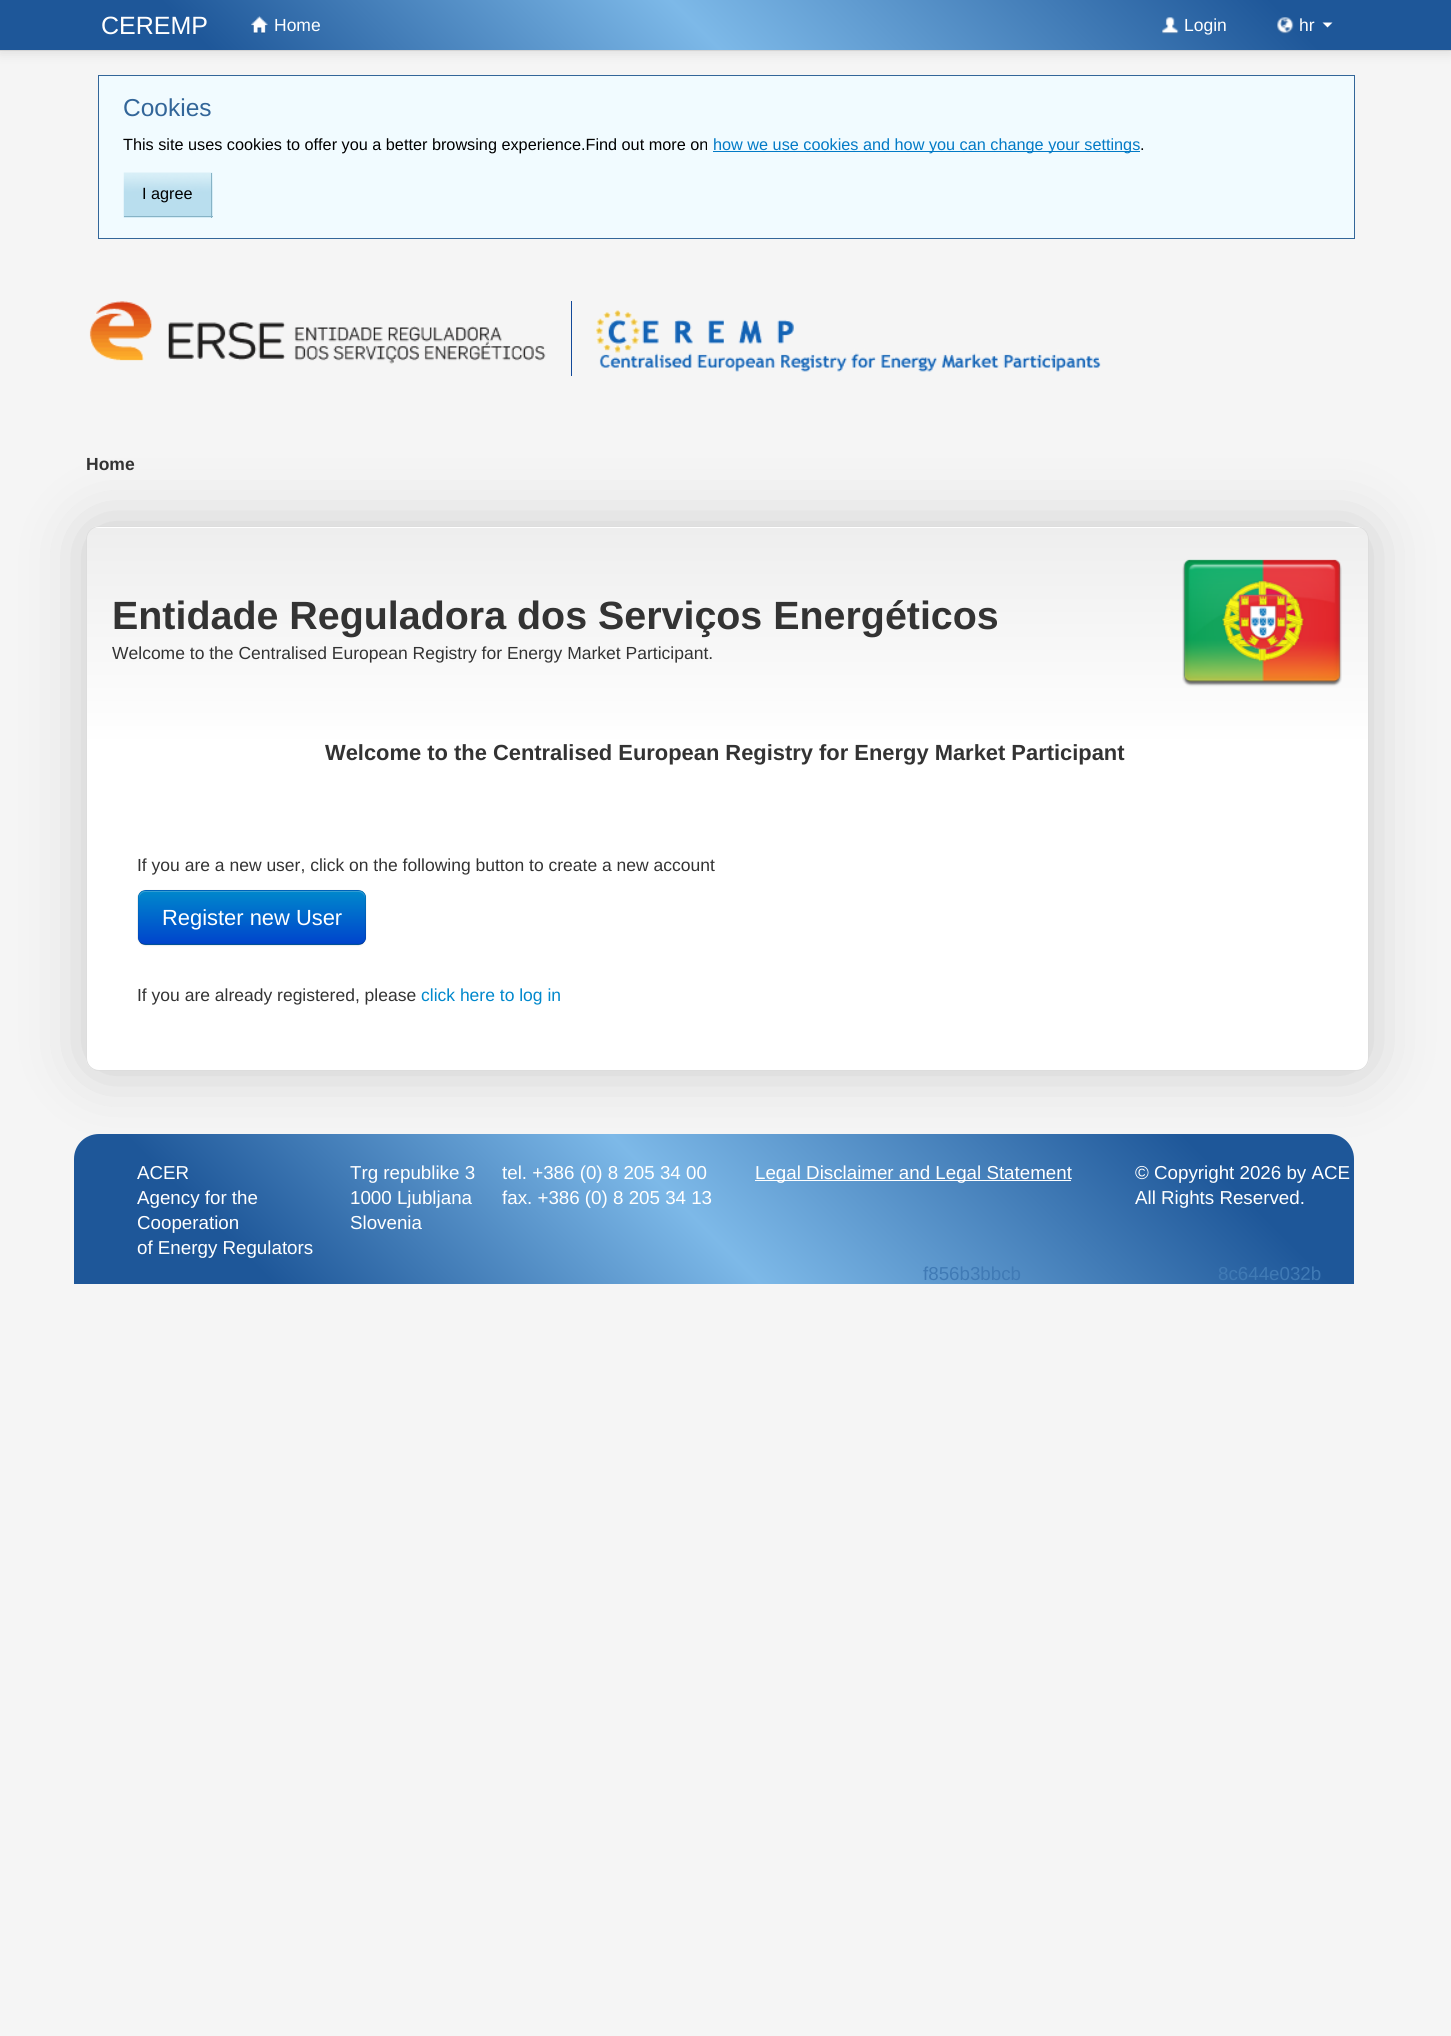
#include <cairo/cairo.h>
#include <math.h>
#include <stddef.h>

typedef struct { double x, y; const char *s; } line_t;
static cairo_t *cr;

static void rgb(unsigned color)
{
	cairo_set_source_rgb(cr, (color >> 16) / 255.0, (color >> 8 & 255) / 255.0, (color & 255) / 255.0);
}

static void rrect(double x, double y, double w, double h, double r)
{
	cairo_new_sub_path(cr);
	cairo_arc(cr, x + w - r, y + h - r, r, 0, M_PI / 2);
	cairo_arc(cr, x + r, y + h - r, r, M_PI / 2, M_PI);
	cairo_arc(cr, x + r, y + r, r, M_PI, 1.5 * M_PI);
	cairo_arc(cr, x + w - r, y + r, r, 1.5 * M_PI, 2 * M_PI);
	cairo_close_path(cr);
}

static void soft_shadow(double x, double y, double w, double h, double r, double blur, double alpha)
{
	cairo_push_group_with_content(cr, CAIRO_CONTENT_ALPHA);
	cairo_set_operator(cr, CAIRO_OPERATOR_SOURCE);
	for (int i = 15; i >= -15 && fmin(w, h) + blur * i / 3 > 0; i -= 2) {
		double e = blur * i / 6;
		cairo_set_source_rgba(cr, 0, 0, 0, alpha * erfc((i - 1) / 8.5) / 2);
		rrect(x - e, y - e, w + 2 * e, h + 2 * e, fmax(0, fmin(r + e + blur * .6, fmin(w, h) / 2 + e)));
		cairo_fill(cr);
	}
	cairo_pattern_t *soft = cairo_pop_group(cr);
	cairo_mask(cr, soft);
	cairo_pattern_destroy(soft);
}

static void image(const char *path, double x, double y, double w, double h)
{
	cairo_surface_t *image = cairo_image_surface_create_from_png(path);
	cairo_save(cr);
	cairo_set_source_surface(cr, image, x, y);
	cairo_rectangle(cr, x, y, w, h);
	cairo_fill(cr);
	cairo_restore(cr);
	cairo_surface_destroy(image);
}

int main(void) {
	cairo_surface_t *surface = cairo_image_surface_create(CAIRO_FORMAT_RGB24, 1451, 2036);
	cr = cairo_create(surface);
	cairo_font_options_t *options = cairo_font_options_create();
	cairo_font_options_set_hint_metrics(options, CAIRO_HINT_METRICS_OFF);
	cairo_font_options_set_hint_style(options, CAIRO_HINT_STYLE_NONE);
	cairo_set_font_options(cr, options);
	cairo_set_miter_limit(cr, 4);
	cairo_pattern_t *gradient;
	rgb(0xf5f5f5);
	cairo_paint(cr);
	rgb(0x000000);
	soft_shadow(0, 1, 1451, 52, 0, 6, 0.1);
	gradient = cairo_pattern_create_linear(350, 400, 1101, -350);
	cairo_pattern_add_color_stop_rgba(gradient, 0.14, 0.118, 0.341, 0.6, 1);
	cairo_pattern_add_color_stop_rgba(gradient, 0.48, 0.49, 0.725, 0.91, 1);
	cairo_pattern_add_color_stop_rgba(gradient, 0.88, 0.118, 0.341, 0.6, 1);
	cairo_set_source(cr, gradient);
	cairo_pattern_destroy(gradient);
	cairo_rectangle(cr, 0, 0, 1451, 50);
	cairo_fill(cr);
	rgb(0xd4d4d4);
	cairo_rectangle(cr, 0, 50, 1451, 1);
	cairo_fill(cr);
	image("img/1.png", 251, 16, 17, 18);
	image("img/2.png", 1162, 17, 17, 17);
	image("img/3.png", 1277, 17, 17, 17);
	rgb(0xffffff);
	cairo_new_path(cr);
	cairo_move_to(cr, 1322.5, 22.5);
	cairo_line_to(cr, 1332.5, 22.5);
	cairo_line_to(cr, 1327.5, 27.5);
	cairo_close_path(cr);
	cairo_fill(cr);
	image("img/4.png", 89, 301, 457, 63);
	rgb(0x124999);
	cairo_rectangle(cr, 571, 301, 1, 75);
	cairo_fill(cr);
	image("img/5.png", 595, 310, 506, 62);
	rgb(0xf1fbff);
	cairo_rectangle(cr, 98.5, 75.5, 1256, 163);
	cairo_fill_preserve(cr);
	rgb(0x336699);
	cairo_set_line_width(cr, 1);
	cairo_stroke(cr);
	rgb(0x027ac6);
	cairo_rectangle(cr, 713, 151, 427, 1);
	cairo_fill(cr);
	image("img/6.png", 123, 172, 90, 46);
	rgb(0x86b3c6);
	cairo_rectangle(cr, 211, 173, 1, 45);
	cairo_fill(cr);
	cairo_rectangle(cr, 124, 216, 89, 1);
	cairo_fill(cr);
	rgb(0xcccccc);
	soft_shadow(86, 526, 1283, 545, 13, 31, 1);
	cairo_save(cr);
	rrect(86, 526, 1283, 545, 13);
	cairo_clip(cr);
	gradient = cairo_pattern_create_linear(88, -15, 88, 202);
	cairo_pattern_add_color_stop_rgba(gradient, 0, 0.933, 0.933, 0.933, 1);
	cairo_pattern_add_color_stop_rgba(gradient, 1, 1, 1, 1, 1);
	cairo_set_source(cr, gradient);
	cairo_pattern_destroy(gradient);
	cairo_rectangle(cr, 86, 526, 1283, 2);
	cairo_fill(cr);
	gradient = cairo_pattern_create_linear(88, 528, 88, 745);
	cairo_pattern_add_color_stop_rgba(gradient, 0, 0.933, 0.933, 0.933, 1);
	cairo_pattern_add_color_stop_rgba(gradient, 1, 1, 1, 1, 1);
	cairo_set_source(cr, gradient);
	cairo_pattern_destroy(gradient);
	cairo_rectangle(cr, 86, 528, 1283, 542);
	cairo_fill(cr);
	cairo_restore(cr);
	rrect(86.5, 526.5, 1282, 544, 12.5);
	rgb(0xdddddd);
	cairo_stroke(cr);
	image("img/7.png", 1182, 559, 160, 128);
	rgb(0x000000);
	soft_shadow(138, 891, 228, 55, 8, 1, 0.05);
	rgb(0x006dcc);
	rrect(138, 890, 228, 55, 8);
	cairo_fill(cr);
	cairo_save(cr);
	rrect(138, 890, 228, 55, 8);
	cairo_clip(cr);
	gradient = cairo_pattern_create_linear(252, 891, 252, 944);
	cairo_pattern_add_color_stop_rgba(gradient, 0, 0, 0.533, 0.8, 1);
	cairo_pattern_add_color_stop_rgba(gradient, 1, 0, 0.267, 0.8, 1);
	cairo_set_source(cr, gradient);
	cairo_pattern_destroy(gradient);
	cairo_rectangle(cr, 138, 891, 228, 53);
	cairo_fill(cr);
	cairo_restore(cr);
	cairo_set_source_rgba(cr, 1, 1, 1, 0.2);
	cairo_new_path(cr);
	cairo_move_to(cr, 145, 892);
	cairo_line_to(cr, 359, 892);
	cairo_curve_to(cr, 362, 892, 365, 895, 365, 899);
	cairo_line_to(cr, 365, 897);
	cairo_curve_to(cr, 365, 894, 362, 891, 359, 891);
	cairo_line_to(cr, 145, 891);
	cairo_curve_to(cr, 142, 891, 139, 894, 139, 897);
	cairo_line_to(cr, 139, 899);
	cairo_curve_to(cr, 139, 895, 142, 892, 145, 892);
	cairo_close_path(cr);
	cairo_fill(cr);
	cairo_new_path(cr);
	cairo_move_to(cr, 363.5, 942.5);
	cairo_curve_to(cr, 362.5, 943.5, 360.5, 944.5, 359, 944.5);
	cairo_line_to(cr, 145, 944.5);
	cairo_curve_to(cr, 143, 944.5, 141.5, 943.5, 140, 942.5);
	cairo_set_source_rgba(cr, 0, 0, 0, 0.25);
	cairo_set_line_width(cr, 1.2);
	cairo_stroke(cr);
	cairo_new_path(cr);
	cairo_move_to(cr, 140, 942.5);
	cairo_curve_to(cr, 139, 941, 138, 939.5, 138, 937.5);
	cairo_line_to(cr, 138, 897.5);
	cairo_curve_to(cr, 138, 895.5, 139, 894, 140, 892.5);
	cairo_curve_to(cr, 141.5, 891.5, 143, 890.5, 145, 890.5);
	cairo_line_to(cr, 359, 890.5);
	cairo_curve_to(cr, 360.5, 890.5, 362.5, 891.5, 363.5, 892.5);
	cairo_curve_to(cr, 365, 894, 365.5, 895.5, 365.5, 897.5);
	cairo_line_to(cr, 365.5, 937.5);
	cairo_curve_to(cr, 365.5, 939.5, 365, 941, 363.5, 942.5);
	cairo_set_source_rgba(cr, 0, 0, 0, 0.1);
	cairo_stroke(cr);
	gradient = cairo_pattern_create_linear(356, 1566, 1071, 851);
	cairo_pattern_add_color_stop_rgba(gradient, 0.14, 0.118, 0.341, 0.6, 1);
	cairo_pattern_add_color_stop_rgba(gradient, 0.48, 0.49, 0.725, 0.91, 1);
	cairo_pattern_add_color_stop_rgba(gradient, 0.88, 0.118, 0.341, 0.6, 1);
	cairo_set_source(cr, gradient);
	cairo_pattern_destroy(gradient);
	cairo_new_path(cr);
	cairo_move_to(cr, 99, 1134);
	cairo_line_to(cr, 1329, 1134);
	cairo_curve_to(cr, 1343, 1134, 1354, 1145, 1354, 1159);
	cairo_line_to(cr, 1354, 1284);
	cairo_line_to(cr, 74, 1284);
	cairo_line_to(cr, 74, 1159);
	cairo_curve_to(cr, 74, 1145, 85, 1134, 99, 1134);
	cairo_close_path(cr);
	cairo_fill(cr);
	rgb(0xffffff);
	cairo_rectangle(cr, 755, 1180, 316, 1);
	cairo_fill(cr);
	cairo_select_font_face(cr, "Liberation Sans", CAIRO_FONT_SLANT_NORMAL, CAIRO_FONT_WEIGHT_NORMAL);
	cairo_set_font_size(cr, 25);
	cairo_move_to(cr, 101, 34);
	cairo_show_text(cr, "CEREMP");
	cairo_set_font_size(cr, 17.5);
	{
		static const line_t items[] = {
			{274, 31, "Home"},
			{1184, 31, "Login"},
			{1299, 31, "hr"},
		};
		for (size_t i = 0; i < sizeof items / sizeof *items; i++) {
			cairo_move_to(cr, items[i].x, items[i].y);
			cairo_show_text(cr, items[i].s);
		}
	}
	cairo_select_font_face(cr, "Liberation Sans", CAIRO_FONT_SLANT_NORMAL, CAIRO_FONT_WEIGHT_BOLD);
	rgb(0x333333);
	cairo_move_to(cr, 86, 470);
	cairo_show_text(cr, "Home");
	cairo_select_font_face(cr, "Liberation Sans", CAIRO_FONT_SLANT_NORMAL, CAIRO_FONT_WEIGHT_NORMAL);
	cairo_set_font_size(cr, 24.5);
	rgb(0x336699);
	cairo_move_to(cr, 123, 116);
	cairo_show_text(cr, "Cookies");
	cairo_set_font_size(cr, 16.25);
	rgb(0x000000);
	cairo_move_to(cr, 123, 150);
	cairo_show_text(cr, "This site uses cookies to offer you a better browsing experience.Find out more on");
	rgb(0x027ac6);
	cairo_move_to(cr, 713, 150);
	cairo_show_text(cr, "how we use cookies and how you can change your settings");
	rgb(0x000000);
	cairo_move_to(cr, 1140, 150);
	cairo_show_text(cr, ".");
	cairo_move_to(cr, 142, 199);
	cairo_show_text(cr, "I agree");
	cairo_select_font_face(cr, "Liberation Sans", CAIRO_FONT_SLANT_NORMAL, CAIRO_FONT_WEIGHT_BOLD);
	cairo_set_font_size(cr, 39.4);
	rgb(0x333333);
	cairo_move_to(cr, 112, 629);
	cairo_show_text(cr, "Entidade Reguladora dos Serviços Energéticos");
	cairo_select_font_face(cr, "Liberation Sans", CAIRO_FONT_SLANT_NORMAL, CAIRO_FONT_WEIGHT_NORMAL);
	cairo_set_font_size(cr, 17.5);
	cairo_move_to(cr, 112, 659);
	cairo_show_text(cr, "Welcome to the Centralised European Registry for Energy Market Participant.");
	cairo_select_font_face(cr, "Liberation Sans", CAIRO_FONT_SLANT_NORMAL, CAIRO_FONT_WEIGHT_BOLD);
	cairo_set_font_size(cr, 21.9);
	cairo_move_to(cr, 325, 760);
	cairo_show_text(cr, "Welcome to the Centralised European Registry for Energy Market Participant");
	cairo_select_font_face(cr, "Liberation Sans", CAIRO_FONT_SLANT_NORMAL, CAIRO_FONT_WEIGHT_NORMAL);
	cairo_set_font_size(cr, 17.5);
	cairo_move_to(cr, 137, 871);
	cairo_show_text(cr, "If you are a new user, click on the following button to create a new account");
	cairo_set_font_size(cr, 21.9);
	rgb(0xffffff);
	cairo_move_to(cr, 162, 925);
	cairo_show_text(cr, "Register new User");
	cairo_set_font_size(cr, 17.5);
	rgb(0x333333);
	cairo_move_to(cr, 137, 1001);
	cairo_show_text(cr, "If you are already registered, please");
	rgb(0x0088cc);
	cairo_move_to(cr, 421, 1001);
	cairo_show_text(cr, "click here to log in");
	cairo_set_font_size(cr, 18.75);
	rgb(0xffffff);
	{
		static const line_t items[] = {
			{137, 1179, "ACER"},
			{137, 1204, "Agency for the"},
			{137, 1229, "Cooperation"},
			{137, 1254, "of Energy Regulators"},
			{350, 1179, "Trg republike 3"},
			{350, 1204, "1000 Ljubljana"},
			{350, 1229, "Slovenia"},
			{502, 1179, "tel. +386 (0) 8 205 34 00"},
			{502, 1204, "fax. +386 (0) 8 205 34 13"},
			{755, 1179, "Legal Disclaimer and Legal Statement"},
			{1135, 1179, "© Copyright 2026 by ACE"},
			{1135, 1204, "All Rights Reserved."},
		};
		for (size_t i = 0; i < sizeof items / sizeof *items; i++) {
			cairo_move_to(cr, items[i].x, items[i].y);
			cairo_show_text(cr, items[i].s);
		}
	}
	rgb(0x407ab5);
	cairo_move_to(cr, 923, 1280);
	cairo_show_text(cr, "f856b3bbcb");
	cairo_move_to(cr, 1218, 1280);
	cairo_show_text(cr, "8c644e032b");
	cairo_surface_write_to_png(surface, "page.png");
	cairo_font_options_destroy(options);
	cairo_destroy(cr);
	cairo_surface_destroy(surface);
	return 0;
}
